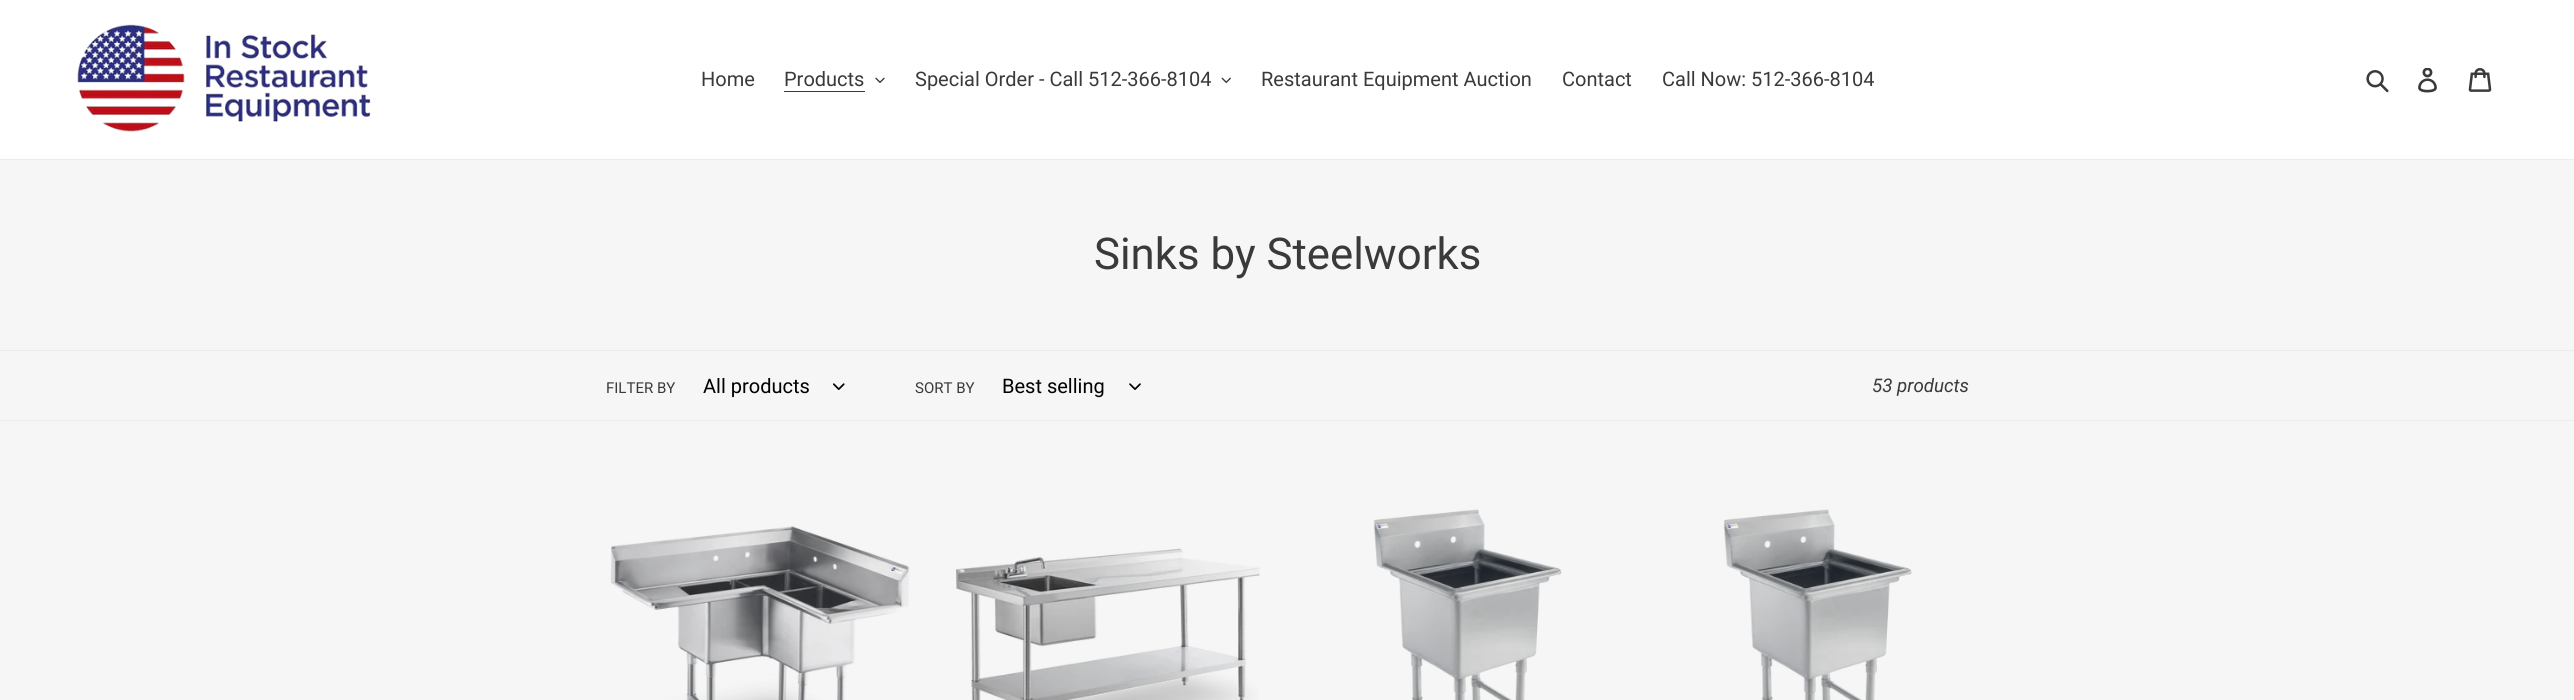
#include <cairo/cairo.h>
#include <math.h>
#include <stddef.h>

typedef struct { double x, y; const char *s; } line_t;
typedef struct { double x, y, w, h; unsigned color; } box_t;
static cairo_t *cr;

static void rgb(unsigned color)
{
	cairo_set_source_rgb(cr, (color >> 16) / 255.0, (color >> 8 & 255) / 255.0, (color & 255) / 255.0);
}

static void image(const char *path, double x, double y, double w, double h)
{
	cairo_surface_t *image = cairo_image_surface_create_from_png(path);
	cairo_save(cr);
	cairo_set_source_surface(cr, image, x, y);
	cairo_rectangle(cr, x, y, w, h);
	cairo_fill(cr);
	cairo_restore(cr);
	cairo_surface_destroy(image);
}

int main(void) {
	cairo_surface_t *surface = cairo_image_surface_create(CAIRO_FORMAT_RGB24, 2574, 700);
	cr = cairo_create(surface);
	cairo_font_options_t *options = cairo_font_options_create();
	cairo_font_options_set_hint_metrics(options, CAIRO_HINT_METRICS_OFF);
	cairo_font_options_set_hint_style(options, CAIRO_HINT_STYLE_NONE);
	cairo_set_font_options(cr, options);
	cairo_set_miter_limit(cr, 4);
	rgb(0xffffff);
	cairo_paint(cr);
	rgb(0xebebeb);
	cairo_rectangle(cr, 0, 159, 2574, 1);
	cairo_fill(cr);
	image("img/1.png", 77, 24, 294, 108);
	rgb(0x3a3a3a);
	cairo_rectangle(cr, 784, 91, 81, 1);
	cairo_fill(cr);
	image("img/2.png", 875, 77, 10, 6);
	image("img/3.png", 1221, 77, 10, 6);
	image("img/4.png", 2366, 70, 23, 23);
	image("img/5.png", 2418, 68, 19, 25);
	image("img/6.png", 2468, 68, 24, 24);
	{
		static const box_t items[] = {
			{0, 160, 2574, 540, 0xf6f6f6},
			{0, 350, 2574, 1, 0xebebeb},
			{0, 420, 2574, 1, 0xebebeb},
		};
		for (size_t i = 0; i < sizeof items / sizeof *items; i++) {
			rgb(items[i].color);
			cairo_rectangle(cr, items[i].x, items[i].y, items[i].w, items[i].h);
			cairo_fill(cr);
		}
	}
	image("img/7.png", 833, 383, 12, 7);
	image("img/8.png", 1129, 383, 12, 7);
	image("img/9.png", 610, 526, 300, 174);
	image("img/10.png", 956, 548, 304, 152);
	image("img/11.png", 1373, 509, 189, 191);
	image("img/12.png", 1723, 509, 189, 191);
	cairo_select_font_face(cr, "Roboto", CAIRO_FONT_SLANT_NORMAL, CAIRO_FONT_WEIGHT_NORMAL);
	cairo_set_font_size(cr, 20);
	rgb(0x3a3a3a);
	{
		static const line_t items[] = {
			{701, 86, "Home"},
			{784, 86, "Products"},
			{915, 86, "Special Order - Call 512-366-8104"},
			{1261, 86, "Restaurant Equipment Auction"},
			{1562, 86, "Contact"},
			{1662, 86, "Call Now: 512-366-8104"},
		};
		for (size_t i = 0; i < sizeof items / sizeof *items; i++) {
			cairo_move_to(cr, items[i].x, items[i].y);
			cairo_show_text(cr, items[i].s);
		}
	}
	cairo_set_font_size(cr, 43.75);
	cairo_move_to(cr, 1094, 269);
	cairo_show_text(cr, "Sinks by Steelworks");
	cairo_set_font_size(cr, 15);
	cairo_move_to(cr, 606, 393);
	cairo_show_text(cr, "FILTER BY");
	cairo_set_font_size(cr, 20);
	rgb(0x000000);
	cairo_move_to(cr, 703, 393);
	cairo_show_text(cr, "All products");
	cairo_set_font_size(cr, 15);
	rgb(0x3a3a3a);
	cairo_move_to(cr, 915, 393);
	cairo_show_text(cr, "SORT BY");
	cairo_set_font_size(cr, 20);
	rgb(0x000000);
	cairo_move_to(cr, 1002, 393);
	cairo_show_text(cr, "Best selling");
	cairo_select_font_face(cr, "Roboto", CAIRO_FONT_SLANT_ITALIC, CAIRO_FONT_WEIGHT_NORMAL);
	cairo_set_font_size(cr, 18.75);
	rgb(0x3a3a3a);
	cairo_move_to(cr, 1872, 392);
	cairo_show_text(cr, "53 products");
	cairo_surface_write_to_png(surface, "page.png");
	cairo_font_options_destroy(options);
	cairo_destroy(cr);
	cairo_surface_destroy(surface);
	return 0;
}
